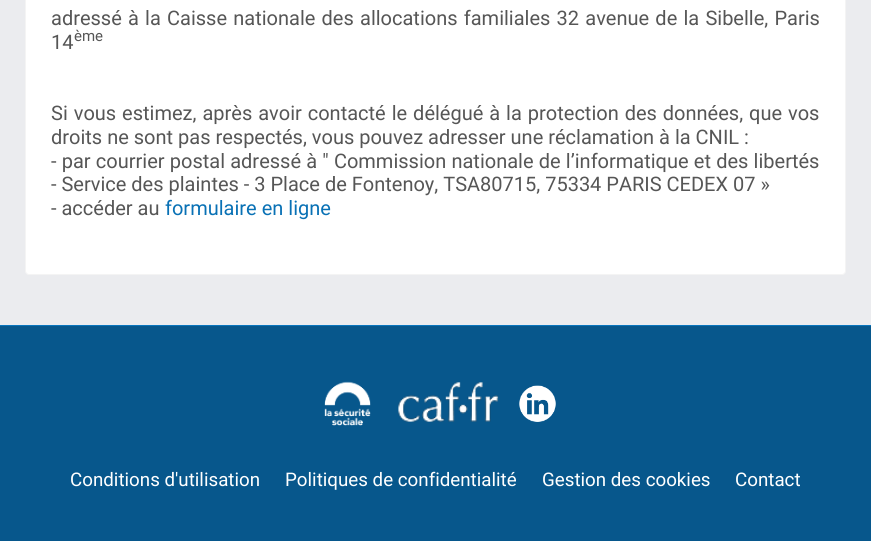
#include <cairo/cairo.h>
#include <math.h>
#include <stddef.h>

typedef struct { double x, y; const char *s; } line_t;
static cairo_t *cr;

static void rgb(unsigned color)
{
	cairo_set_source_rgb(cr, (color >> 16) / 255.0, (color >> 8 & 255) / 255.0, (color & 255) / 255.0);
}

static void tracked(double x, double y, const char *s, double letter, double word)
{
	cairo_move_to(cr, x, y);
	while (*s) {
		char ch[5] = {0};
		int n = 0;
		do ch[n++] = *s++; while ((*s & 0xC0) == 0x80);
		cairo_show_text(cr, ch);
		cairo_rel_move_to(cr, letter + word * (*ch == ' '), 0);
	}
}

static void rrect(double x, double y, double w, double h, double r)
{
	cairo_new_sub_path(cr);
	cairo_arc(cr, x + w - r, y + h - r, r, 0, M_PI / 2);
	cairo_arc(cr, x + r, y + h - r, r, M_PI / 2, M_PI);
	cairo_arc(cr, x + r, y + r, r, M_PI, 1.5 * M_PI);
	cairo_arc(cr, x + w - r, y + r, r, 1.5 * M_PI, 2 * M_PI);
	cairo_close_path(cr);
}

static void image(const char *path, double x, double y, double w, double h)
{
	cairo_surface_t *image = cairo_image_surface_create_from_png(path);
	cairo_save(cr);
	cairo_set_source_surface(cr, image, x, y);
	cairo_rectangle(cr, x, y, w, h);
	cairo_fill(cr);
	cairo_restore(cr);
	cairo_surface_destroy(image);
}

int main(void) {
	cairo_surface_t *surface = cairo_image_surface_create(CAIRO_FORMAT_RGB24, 871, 541);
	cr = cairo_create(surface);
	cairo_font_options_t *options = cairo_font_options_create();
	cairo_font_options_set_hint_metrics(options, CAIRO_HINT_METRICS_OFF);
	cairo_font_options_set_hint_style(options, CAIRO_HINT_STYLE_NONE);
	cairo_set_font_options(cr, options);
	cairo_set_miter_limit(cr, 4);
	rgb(0xebecef);
	cairo_paint(cr);
	rgb(0xffffff);
	rrect(25.5, -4.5, 820, 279, 3.5);
	cairo_fill_preserve(cr);
	rgb(0xf4f4f4);
	cairo_set_line_width(cr, 1);
	cairo_stroke(cr);
	rgb(0x07578c);
	cairo_rectangle(cr, 0, 326, 871, 215);
	cairo_fill(cr);
	rgb(0x0975bd);
	cairo_rectangle(cr, 0, 325, 871, 1);
	cairo_fill(cr);
	image("img/1.png", 324, 381, 47, 45);
	image("img/2.png", 398, 382, 101, 40);
	image("img/3.png", 519, 385, 37, 37);
	cairo_select_font_face(cr, "Roboto", CAIRO_FONT_SLANT_NORMAL, CAIRO_FONT_WEIGHT_NORMAL);
	cairo_set_font_size(cr, 20);
	rgb(0x565656);
	tracked(51, 25, "adressé à la Caisse nationale des allocations familiales 32 avenue de la Sibelle, Paris", 0, 1.25);
	cairo_move_to(cr, 51, 49);
	cairo_show_text(cr, "14");
	cairo_set_font_size(cr, 15);
	cairo_move_to(cr, 74, 41);
	cairo_show_text(cr, "ème");
	cairo_set_font_size(cr, 20);
	tracked(51, 120, "Si vous estimez, après avoir contacté le délégué à la protection des données, que vos", 0, 1);
	cairo_move_to(cr, 51, 144);
	cairo_show_text(cr, "droits ne sont pas respectés, vous pouvez adresser une réclamation à la CNIL :");
	tracked(51, 168, "- par courrier postal adressé à \" Commission nationale de l’informatique et des libertés", 0, 0.25);
	cairo_move_to(cr, 51, 191);
	cairo_show_text(cr, "- Service des plaintes - 3 Place de Fontenoy, TSA80715, 75334 PARIS CEDEX 07 »");
	cairo_move_to(cr, 51, 215);
	cairo_show_text(cr, "- accéder au");
	rgb(0x0971b5);
	cairo_move_to(cr, 165, 215);
	cairo_show_text(cr, "formulaire en ligne");
	cairo_set_font_size(cr, 18.75);
	rgb(0xffffff);
	{
		static const line_t items[] = {
			{70, 486, "Conditions d'utilisation"},
			{285, 486, "Politiques de confidentialité"},
			{542, 486, "Gestion des cookies"},
			{735, 486, "Contact"},
		};
		for (size_t i = 0; i < sizeof items / sizeof *items; i++) {
			cairo_move_to(cr, items[i].x, items[i].y);
			cairo_show_text(cr, items[i].s);
		}
	}
	cairo_surface_write_to_png(surface, "page.png");
	cairo_font_options_destroy(options);
	cairo_destroy(cr);
	cairo_surface_destroy(surface);
	return 0;
}
